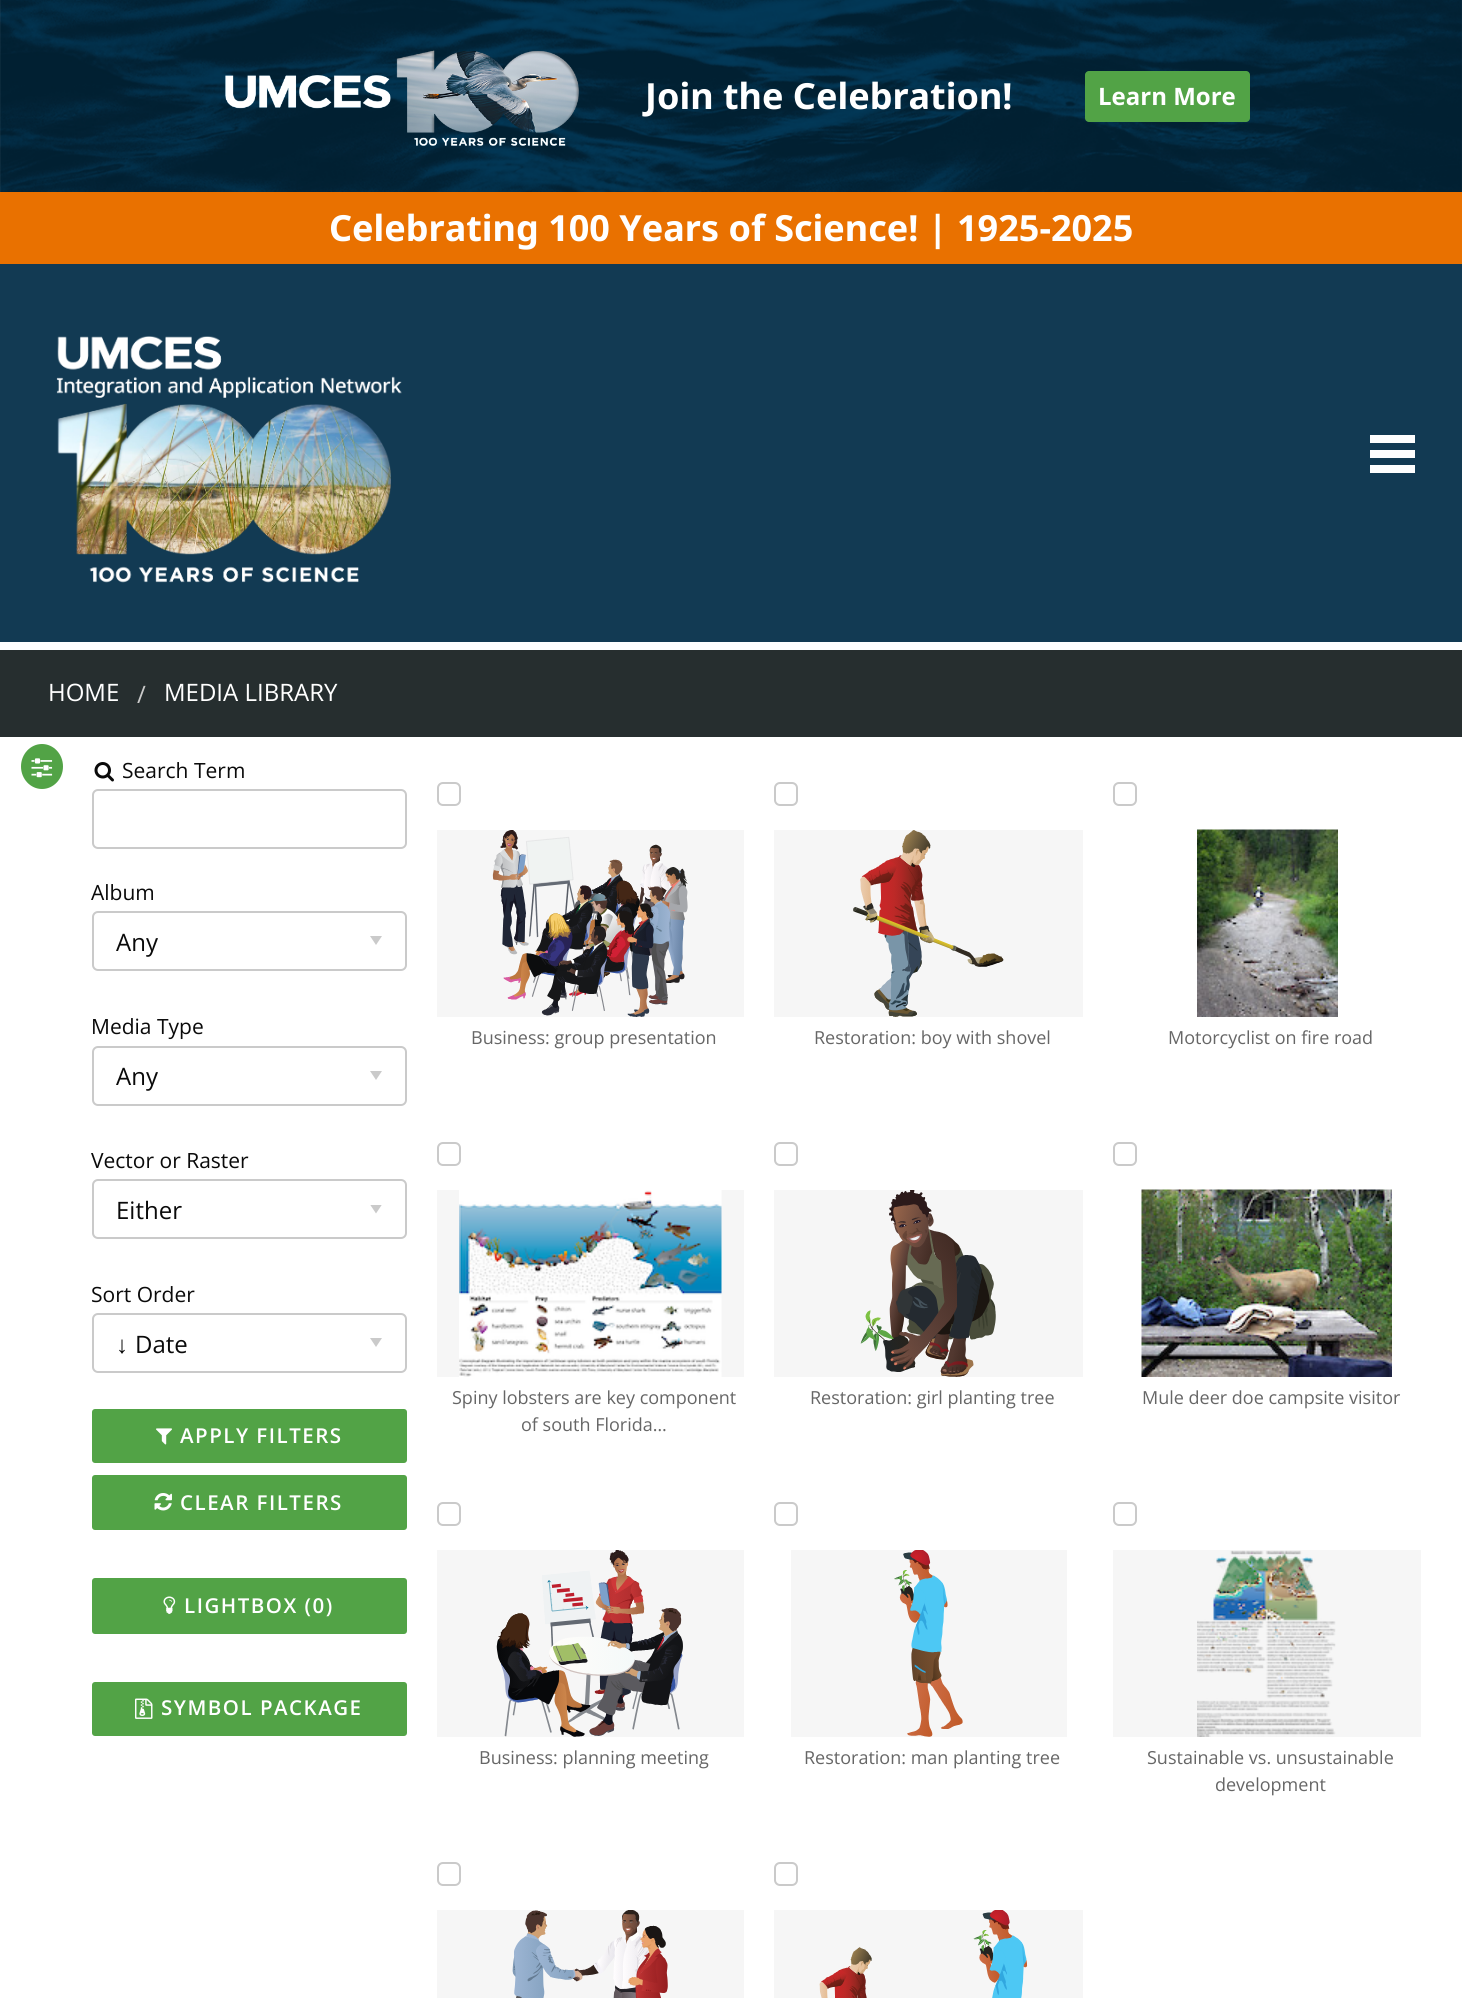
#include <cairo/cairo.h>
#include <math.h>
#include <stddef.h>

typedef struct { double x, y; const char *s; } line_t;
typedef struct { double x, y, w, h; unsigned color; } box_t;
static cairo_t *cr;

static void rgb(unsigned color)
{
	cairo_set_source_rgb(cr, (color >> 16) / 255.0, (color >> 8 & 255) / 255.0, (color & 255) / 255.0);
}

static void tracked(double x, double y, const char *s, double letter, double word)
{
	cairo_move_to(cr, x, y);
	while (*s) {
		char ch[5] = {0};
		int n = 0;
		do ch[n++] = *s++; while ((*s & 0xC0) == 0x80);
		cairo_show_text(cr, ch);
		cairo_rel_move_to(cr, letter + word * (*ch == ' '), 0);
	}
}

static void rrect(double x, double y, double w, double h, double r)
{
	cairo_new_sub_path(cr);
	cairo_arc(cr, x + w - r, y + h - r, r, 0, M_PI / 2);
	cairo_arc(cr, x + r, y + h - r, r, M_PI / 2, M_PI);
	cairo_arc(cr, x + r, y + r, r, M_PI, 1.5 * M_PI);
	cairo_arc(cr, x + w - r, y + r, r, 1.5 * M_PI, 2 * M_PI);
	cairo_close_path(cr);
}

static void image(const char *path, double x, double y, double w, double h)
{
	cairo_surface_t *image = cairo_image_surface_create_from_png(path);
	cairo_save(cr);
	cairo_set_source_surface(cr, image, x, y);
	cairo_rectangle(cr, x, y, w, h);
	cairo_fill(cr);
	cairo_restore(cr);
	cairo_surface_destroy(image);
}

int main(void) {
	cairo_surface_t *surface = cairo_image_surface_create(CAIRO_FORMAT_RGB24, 1462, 1998);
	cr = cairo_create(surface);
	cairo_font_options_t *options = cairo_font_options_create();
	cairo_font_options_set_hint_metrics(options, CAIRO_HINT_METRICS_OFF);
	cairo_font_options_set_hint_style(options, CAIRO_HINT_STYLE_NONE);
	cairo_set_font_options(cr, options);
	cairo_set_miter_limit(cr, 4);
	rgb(0xffffff);
	cairo_paint(cr);
	image("img/1.png", 0, 0, 1462, 192);
	image("img/2.png", 225, 50, 354, 96);
	rgb(0x52a346);
	rrect(1085, 71, 165, 51, 4);
	cairo_fill(cr);
	rgb(0xe97100);
	cairo_rectangle(cr, 0, 192, 1462, 72);
	cairo_fill(cr);
	rgb(0x123a53);
	cairo_rectangle(cr, 0, 264, 1462, 378);
	cairo_fill(cr);
	image("img/3.png", 56, 336, 346, 247);
	{
		static const box_t items[] = {
			{1370, 465, 45, 8, 0xfefefe},
			{1370, 450, 45, 8, 0xfefefe},
			{1370, 435, 45, 8, 0xfefefe},
			{0, 650, 1462, 87, 0x262e2f},
		};
		for (size_t i = 0; i < sizeof items / sizeof *items; i++) {
			rgb(items[i].color);
			cairo_rectangle(cr, items[i].x, items[i].y, items[i].w, items[i].h);
			cairo_fill(cr);
		}
	}
	rgb(0x52a346);
	cairo_new_path(cr);
	cairo_move_to(cr, 42, 744);
	cairo_curve_to(cr, 53.5, 744, 63, 754, 63, 766.5);
	cairo_curve_to(cr, 63, 779, 53.5, 789, 42, 789);
	cairo_curve_to(cr, 30.5, 789, 21, 779, 21, 766.5);
	cairo_curve_to(cr, 21, 754, 30.5, 744, 42, 744);
	cairo_close_path(cr);
	cairo_fill(cr);
	image("img/4.png", 31, 758, 22, 20);
	image("img/5.png", 94, 762, 20, 20);
	rrect(93, 790, 313, 58, 5);
	rgb(0xcacaca);
	cairo_stroke(cr);
	cairo_new_path(cr);
	cairo_move_to(cr, 370, 936);
	cairo_line_to(cr, 382, 936);
	cairo_line_to(cr, 376, 945);
	cairo_close_path(cr);
	cairo_fill(cr);
	rrect(93, 912, 313, 58, 5);
	cairo_stroke(cr);
	cairo_new_path(cr);
	cairo_move_to(cr, 370, 1071);
	cairo_line_to(cr, 382, 1071);
	cairo_line_to(cr, 376, 1080);
	cairo_close_path(cr);
	cairo_fill(cr);
	rrect(93, 1047, 313, 58, 5);
	cairo_stroke(cr);
	cairo_save(cr);
	cairo_rectangle(cr, 369, 1205, 14, 9);
	cairo_clip(cr);
	cairo_new_path(cr);
	cairo_move_to(cr, 370, 1204.5);
	cairo_line_to(cr, 382, 1204.5);
	cairo_line_to(cr, 376, 1213.5);
	cairo_close_path(cr);
	cairo_fill(cr);
	cairo_restore(cr);
	rrect(93, 1180, 313, 58, 5);
	cairo_stroke(cr);
	cairo_new_path(cr);
	cairo_move_to(cr, 370, 1338);
	cairo_line_to(cr, 382, 1338);
	cairo_line_to(cr, 376, 1347);
	cairo_close_path(cr);
	cairo_fill(cr);
	rrect(93, 1314, 313, 58, 5);
	cairo_stroke(cr);
	rgb(0x52a346);
	rrect(92, 1409, 315, 54, 3);
	cairo_fill(cr);
	image("img/6.png", 156, 1428, 16, 17);
	rrect(92, 1475, 315, 55, 3);
	cairo_fill(cr);
	image("img/7.png", 154, 1493, 18, 18);
	rrect(92, 1578, 315, 56, 3);
	cairo_fill(cr);
	image("img/8.png", 163, 1596, 13, 18);
	rrect(92, 1682, 315, 54, 3);
	cairo_fill(cr);
	image("img/9.png", 135, 1698, 18, 21);
	rrect(438, 783, 22, 22, 5);
	rgb(0xcacaca);
	cairo_stroke(cr);
	rgb(0xf6f6f6);
	cairo_rectangle(cr, 437, 830, 307, 187);
	cairo_fill(cr);
	image("img/10.png", 492, 830, 196, 187);
	rrect(775, 783, 22, 22, 5);
	rgb(0xcacaca);
	cairo_stroke(cr);
	rgb(0xf6f6f6);
	cairo_rectangle(cr, 774, 830, 309, 187);
	cairo_fill(cr);
	image("img/11.png", 853, 830, 151, 187);
	rrect(1114, 783, 22, 22, 5);
	rgb(0xcacaca);
	cairo_stroke(cr);
	image("img/12.png", 1197, 829, 141, 188);
	rrect(438, 1143, 22, 22, 5);
	cairo_stroke(cr);
	rgb(0xf6f6f6);
	cairo_rectangle(cr, 437, 1190, 307, 187);
	cairo_fill(cr);
	image("img/13.png", 459, 1190, 263, 187);
	rrect(775, 1143, 22, 22, 5);
	rgb(0xcacaca);
	cairo_stroke(cr);
	rgb(0xf6f6f6);
	cairo_rectangle(cr, 774, 1190, 309, 187);
	cairo_fill(cr);
	image("img/14.png", 860, 1190, 136, 187);
	rrect(1114, 1143, 22, 22, 5);
	rgb(0xcacaca);
	cairo_stroke(cr);
	image("img/15.png", 1141, 1189, 251, 188);
	rrect(438, 1503, 22, 22, 5);
	cairo_stroke(cr);
	rgb(0xf6f6f6);
	cairo_rectangle(cr, 437, 1550, 307, 187);
	cairo_fill(cr);
	image("img/16.png", 496, 1550, 187, 187);
	rrect(775, 1503, 22, 22, 5);
	rgb(0xcacaca);
	cairo_stroke(cr);
	rgb(0xf6f6f6);
	cairo_rectangle(cr, 791, 1550, 276, 187);
	cairo_fill(cr);
	image("img/17.png", 894, 1550, 69, 187);
	rrect(1114, 1503, 22, 22, 5);
	rgb(0xcacaca);
	cairo_stroke(cr);
	rgb(0xf6f6f6);
	cairo_rectangle(cr, 1113, 1550, 308, 187);
	cairo_fill(cr);
	image("img/18.png", 1197, 1550, 139, 187);
	rrect(438, 1863, 22, 22, 5);
	rgb(0xcacaca);
	cairo_stroke(cr);
	rgb(0xf6f6f6);
	cairo_rectangle(cr, 437, 1910, 307, 88);
	cairo_fill(cr);
	image("img/19.png", 512, 1910, 156, 88);
	rrect(775, 1863, 22, 22, 5);
	rgb(0xcacaca);
	cairo_stroke(cr);
	rgb(0xf6f6f6);
	cairo_rectangle(cr, 774, 1910, 309, 88);
	cairo_fill(cr);
	image("img/20.png", 819, 1910, 209, 88);
	cairo_select_font_face(cr, "Noto Sans", CAIRO_FONT_SLANT_NORMAL, CAIRO_FONT_WEIGHT_BOLD);
	cairo_set_font_size(cr, 36);
	rgb(0xffffff);
	cairo_move_to(cr, 645, 109);
	cairo_show_text(cr, "Join the Celebration!");
	cairo_select_font_face(cr, "Open Sans", CAIRO_FONT_SLANT_NORMAL, CAIRO_FONT_WEIGHT_BOLD);
	cairo_set_font_size(cr, 24);
	cairo_move_to(cr, 1098, 105);
	cairo_show_text(cr, "Learn More");
	cairo_select_font_face(cr, "Noto Sans", CAIRO_FONT_SLANT_NORMAL, CAIRO_FONT_WEIGHT_BOLD);
	cairo_set_font_size(cr, 36);
	cairo_move_to(cr, 329, 241);
	cairo_show_text(cr, "Celebrating 100 Years of Science! | 1925-2025");
	cairo_select_font_face(cr, "Open Sans", CAIRO_FONT_SLANT_NORMAL, CAIRO_FONT_WEIGHT_NORMAL);
	cairo_set_font_size(cr, 24);
	cairo_move_to(cr, 48, 701);
	cairo_show_text(cr, "HOME");
	rgb(0xcacaca);
	cairo_move_to(cr, 137, 703);
	cairo_show_text(cr, "/");
	rgb(0xffffff);
	cairo_move_to(cr, 164, 701);
	cairo_show_text(cr, "MEDIA LIBRARY");
	cairo_set_font_size(cr, 21);
	rgb(0x0a0a0a);
	cairo_move_to(cr, 122, 778);
	cairo_show_text(cr, "Search Term");
	cairo_move_to(cr, 91, 900);
	cairo_show_text(cr, "Album");
	cairo_set_font_size(cr, 24);
	cairo_move_to(cr, 116, 951);
	cairo_show_text(cr, "Any");
	cairo_set_font_size(cr, 21);
	cairo_move_to(cr, 91, 1034);
	cairo_show_text(cr, "Media Type");
	cairo_set_font_size(cr, 24);
	cairo_move_to(cr, 116, 1085);
	cairo_show_text(cr, "Any");
	cairo_set_font_size(cr, 21);
	cairo_move_to(cr, 91, 1168);
	cairo_show_text(cr, "Vector or Raster");
	cairo_set_font_size(cr, 24);
	cairo_move_to(cr, 116, 1219);
	cairo_show_text(cr, "Either");
	cairo_set_font_size(cr, 21);
	cairo_move_to(cr, 91, 1302);
	cairo_show_text(cr, "Sort Order");
	cairo_select_font_face(cr, "Liberation Sans", CAIRO_FONT_SLANT_NORMAL, CAIRO_FONT_WEIGHT_NORMAL);
	cairo_set_font_size(cr, 24);
	cairo_move_to(cr, 116, 1353);
	cairo_show_text(cr, "↓");
	cairo_select_font_face(cr, "Open Sans", CAIRO_FONT_SLANT_NORMAL, CAIRO_FONT_WEIGHT_NORMAL);
	cairo_move_to(cr, 135, 1353);
	cairo_show_text(cr, "Date");
	cairo_select_font_face(cr, "Open Sans SemiBold", CAIRO_FONT_SLANT_NORMAL, CAIRO_FONT_WEIGHT_NORMAL);
	cairo_set_font_size(cr, 20.5);
	rgb(0xffffff);
	{
		static const line_t items[] = {
			{180, 1443, "APPLY FILTERS"},
			{180, 1510, "CLEAR FILTERS"},
			{184, 1613, "LIGHTBOX (0)"},
			{161, 1715, "SYMBOL PACKAGE"},
		};
		for (size_t i = 0; i < sizeof items / sizeof *items; i++) {
			tracked(items[i].x, items[i].y, items[i].s, 1.5, 0);
		}
	}
	cairo_select_font_face(cr, "Open Sans", CAIRO_FONT_SLANT_NORMAL, CAIRO_FONT_WEIGHT_NORMAL);
	cairo_set_font_size(cr, 18);
	rgb(0x666666);
	{
		static const line_t items[] = {
			{471, 1044, "Business: group presentation"},
			{814, 1044, "Restoration: boy with shovel"},
			{1168, 1044, "Motorcyclist on fire road"},
			{452, 1404, "Spiny lobsters are key component"},
			{521, 1431, "of south Florida…"},
			{810, 1404, "Restoration: girl planting tree"},
			{1142, 1404, "Mule deer doe campsite visitor"},
			{479, 1764, "Business: planning meeting"},
			{804, 1764, "Restoration: man planting tree"},
			{1147, 1764, "Sustainable vs. unsustainable"},
			{1215, 1791, "development"},
		};
		for (size_t i = 0; i < sizeof items / sizeof *items; i++) {
			cairo_move_to(cr, items[i].x, items[i].y);
			cairo_show_text(cr, items[i].s);
		}
	}
	cairo_surface_write_to_png(surface, "page.png");
	cairo_font_options_destroy(options);
	cairo_destroy(cr);
	cairo_surface_destroy(surface);
	return 0;
}
